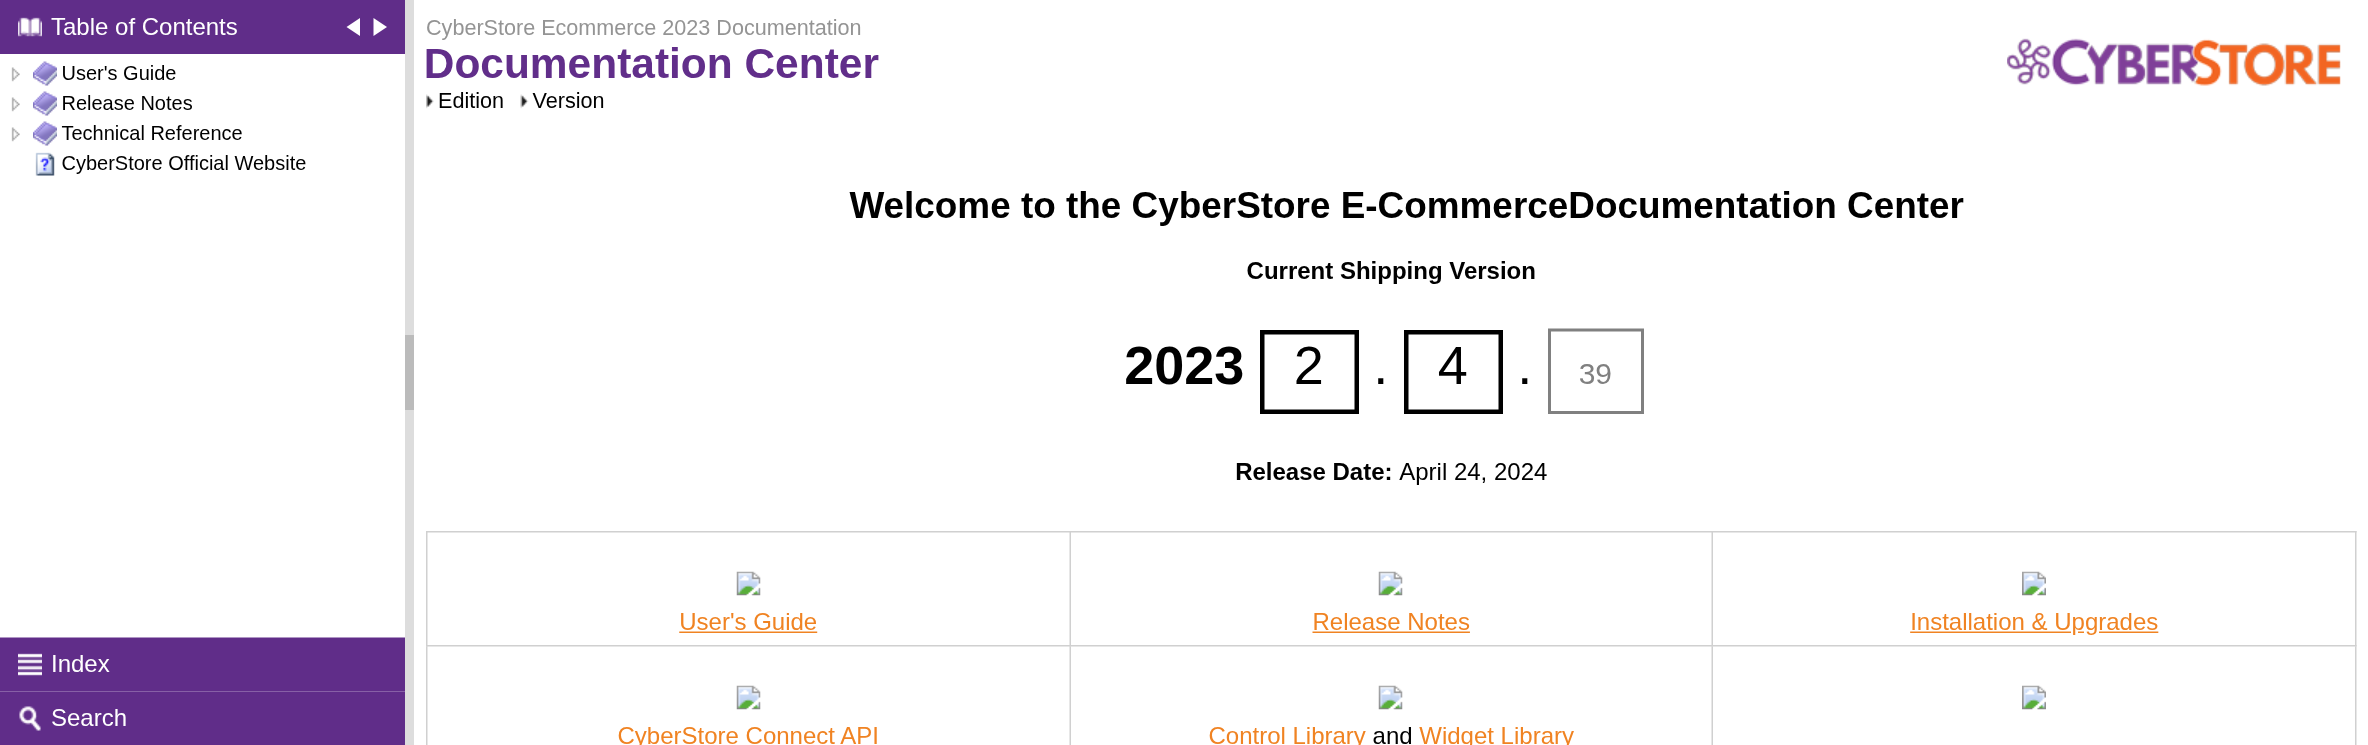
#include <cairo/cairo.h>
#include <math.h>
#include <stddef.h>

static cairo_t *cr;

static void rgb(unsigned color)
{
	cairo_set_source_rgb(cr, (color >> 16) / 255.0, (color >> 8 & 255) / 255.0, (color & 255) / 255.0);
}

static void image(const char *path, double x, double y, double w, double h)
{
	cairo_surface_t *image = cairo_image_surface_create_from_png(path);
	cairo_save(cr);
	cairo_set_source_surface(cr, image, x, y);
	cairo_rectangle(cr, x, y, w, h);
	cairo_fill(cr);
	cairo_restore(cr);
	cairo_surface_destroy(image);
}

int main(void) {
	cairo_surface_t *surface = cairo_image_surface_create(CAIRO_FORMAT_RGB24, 2368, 745);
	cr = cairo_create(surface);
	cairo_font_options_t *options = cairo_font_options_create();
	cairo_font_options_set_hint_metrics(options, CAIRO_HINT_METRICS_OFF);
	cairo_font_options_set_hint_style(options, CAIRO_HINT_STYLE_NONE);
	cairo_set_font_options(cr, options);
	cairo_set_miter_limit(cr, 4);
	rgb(0xffffff);
	cairo_paint(cr);
	image("img/1.png", 0, 0, 405, 745);
	rgb(0xdddddd);
	cairo_rectangle(cr, 405, 0, 9, 745);
	cairo_fill(cr);
	rgb(0xbbbbbb);
	cairo_rectangle(cr, 405, 335, 9, 75);
	cairo_fill(cr);
	image("img/2.png", 426, 19, 1931, 726);
	cairo_surface_write_to_png(surface, "page.png");
	cairo_font_options_destroy(options);
	cairo_destroy(cr);
	cairo_surface_destroy(surface);
	return 0;
}
